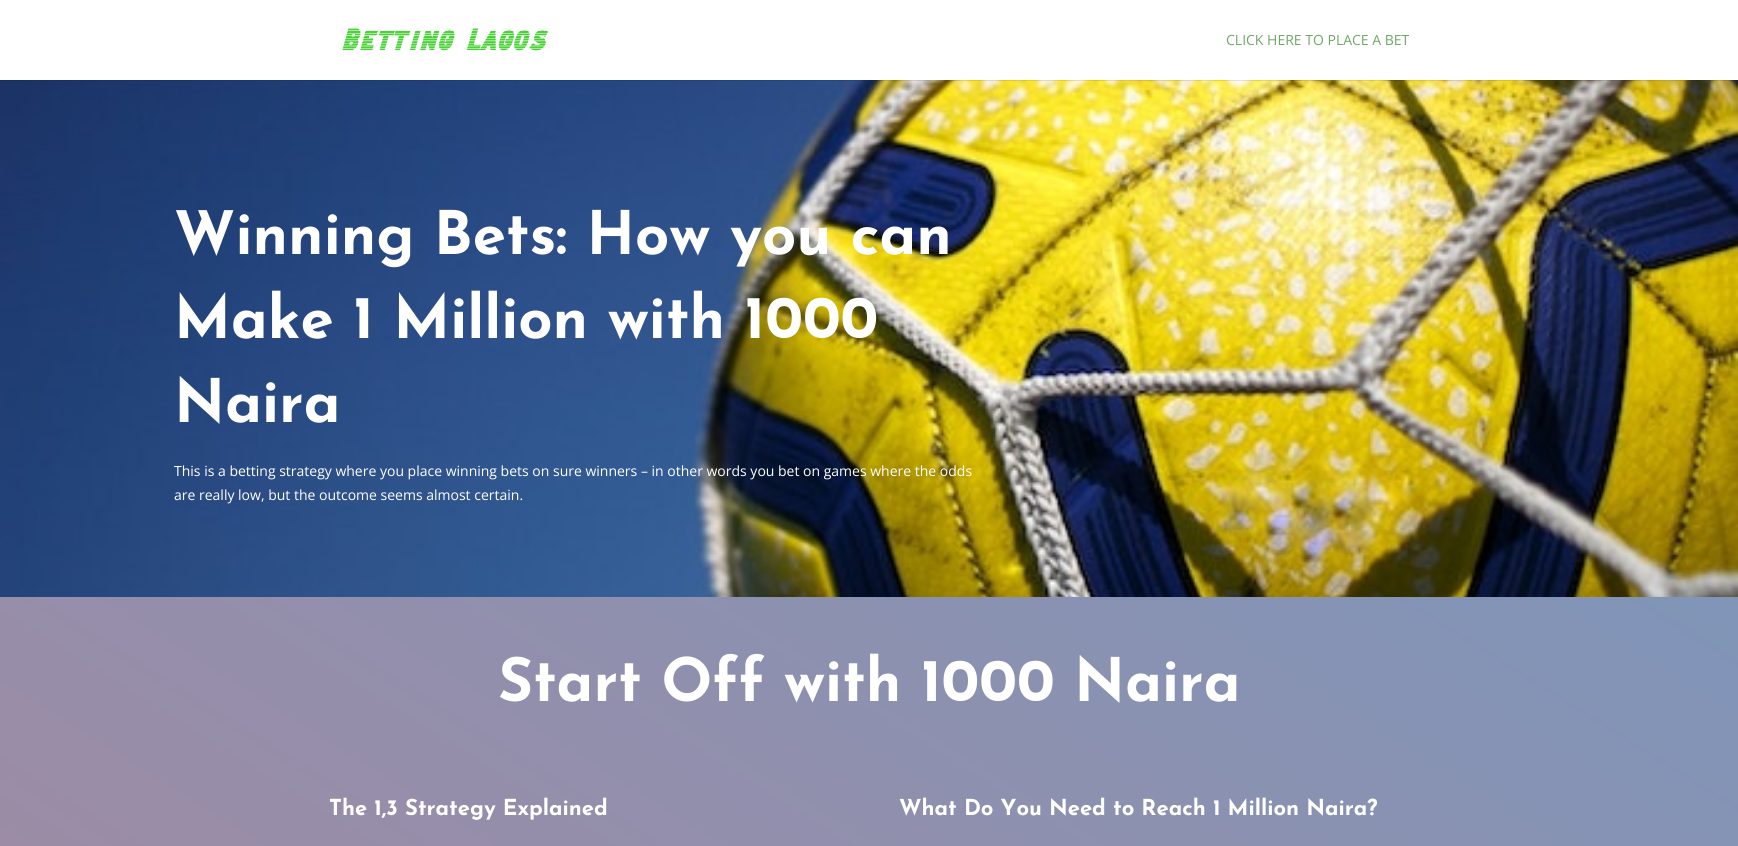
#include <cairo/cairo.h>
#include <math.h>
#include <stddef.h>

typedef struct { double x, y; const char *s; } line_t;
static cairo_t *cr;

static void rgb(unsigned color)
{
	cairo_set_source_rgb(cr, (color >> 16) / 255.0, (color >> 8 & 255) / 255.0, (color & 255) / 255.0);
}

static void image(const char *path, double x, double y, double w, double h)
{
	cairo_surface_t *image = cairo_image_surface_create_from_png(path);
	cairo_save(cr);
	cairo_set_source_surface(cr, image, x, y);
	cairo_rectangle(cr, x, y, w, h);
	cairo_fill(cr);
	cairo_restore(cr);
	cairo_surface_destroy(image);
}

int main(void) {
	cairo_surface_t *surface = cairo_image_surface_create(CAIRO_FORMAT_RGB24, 1738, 846);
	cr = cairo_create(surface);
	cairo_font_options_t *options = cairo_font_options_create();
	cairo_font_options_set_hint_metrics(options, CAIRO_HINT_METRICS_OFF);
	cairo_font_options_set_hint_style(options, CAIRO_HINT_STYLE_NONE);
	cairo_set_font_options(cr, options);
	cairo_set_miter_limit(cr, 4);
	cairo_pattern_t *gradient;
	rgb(0xffffff);
	cairo_paint(cr);
	image("img/2.png", 0, 80, 1738, 517);
	cairo_set_source_rgba(cr, 0, 0, 0, 0.1);
	cairo_rectangle(cr, 0, 80, 1738, 1);
	cairo_fill(cr);
	image("img/1.png", 342, 28, 206, 23);
	gradient = cairo_pattern_create_linear(1394, 382, 344, 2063);
	cairo_pattern_add_color_stop_rgba(gradient, 0, 0.502, 0.584, 0.722, 1);
	cairo_pattern_add_color_stop_rgba(gradient, 1, 0.694, 0.522, 0.596, 1);
	cairo_set_source(cr, gradient);
	cairo_pattern_destroy(gradient);
	cairo_rectangle(cr, 0, 597, 1738, 249);
	cairo_fill(cr);
	cairo_select_font_face(cr, "Open Sans", CAIRO_FONT_SLANT_NORMAL, CAIRO_FONT_WEIGHT_NORMAL);
	cairo_set_font_size(cr, 14);
	rgb(0x6ea966);
	cairo_move_to(cr, 1226, 45);
	cairo_show_text(cr, "CLICK HERE TO PLACE A BET");
	cairo_select_font_face(cr, "Josefin Sans", CAIRO_FONT_SLANT_NORMAL, CAIRO_FONT_WEIGHT_BOLD);
	cairo_set_font_size(cr, 60);
	rgb(0xffffff);
	{
		static const line_t items[] = {
			{174, 254, "Winning Bets: How you can"},
			{174, 338, "Make 1 Million with 1000"},
			{174, 422, "Naira"},
		};
		for (size_t i = 0; i < sizeof items / sizeof *items; i++) {
			cairo_move_to(cr, items[i].x, items[i].y);
			cairo_show_text(cr, items[i].s);
		}
	}
	cairo_select_font_face(cr, "Open Sans", CAIRO_FONT_SLANT_NORMAL, CAIRO_FONT_WEIGHT_NORMAL);
	cairo_set_font_size(cr, 14);
	cairo_move_to(cr, 174, 476);
	cairo_show_text(cr, "This is a betting strategy where you place winning bets on sure winners – in other words you bet on games where the odds");
	cairo_move_to(cr, 174, 500);
	cairo_show_text(cr, "are really low, but the outcome seems almost certain.");
	cairo_select_font_face(cr, "Josefin Sans", CAIRO_FONT_SLANT_NORMAL, CAIRO_FONT_WEIGHT_BOLD);
	cairo_set_font_size(cr, 60);
	cairo_move_to(cr, 498, 701);
	cairo_show_text(cr, "Start Off with 1000 Naira");
	cairo_set_font_size(cr, 22);
	cairo_move_to(cr, 329, 815);
	cairo_show_text(cr, "The 1,3 Strategy Explained");
	cairo_move_to(cr, 899, 815);
	cairo_show_text(cr, "What Do You Need to Reach 1 Million Naira?");
	cairo_surface_write_to_png(surface, "page.png");
	cairo_font_options_destroy(options);
	cairo_destroy(cr);
	cairo_surface_destroy(surface);
	return 0;
}
